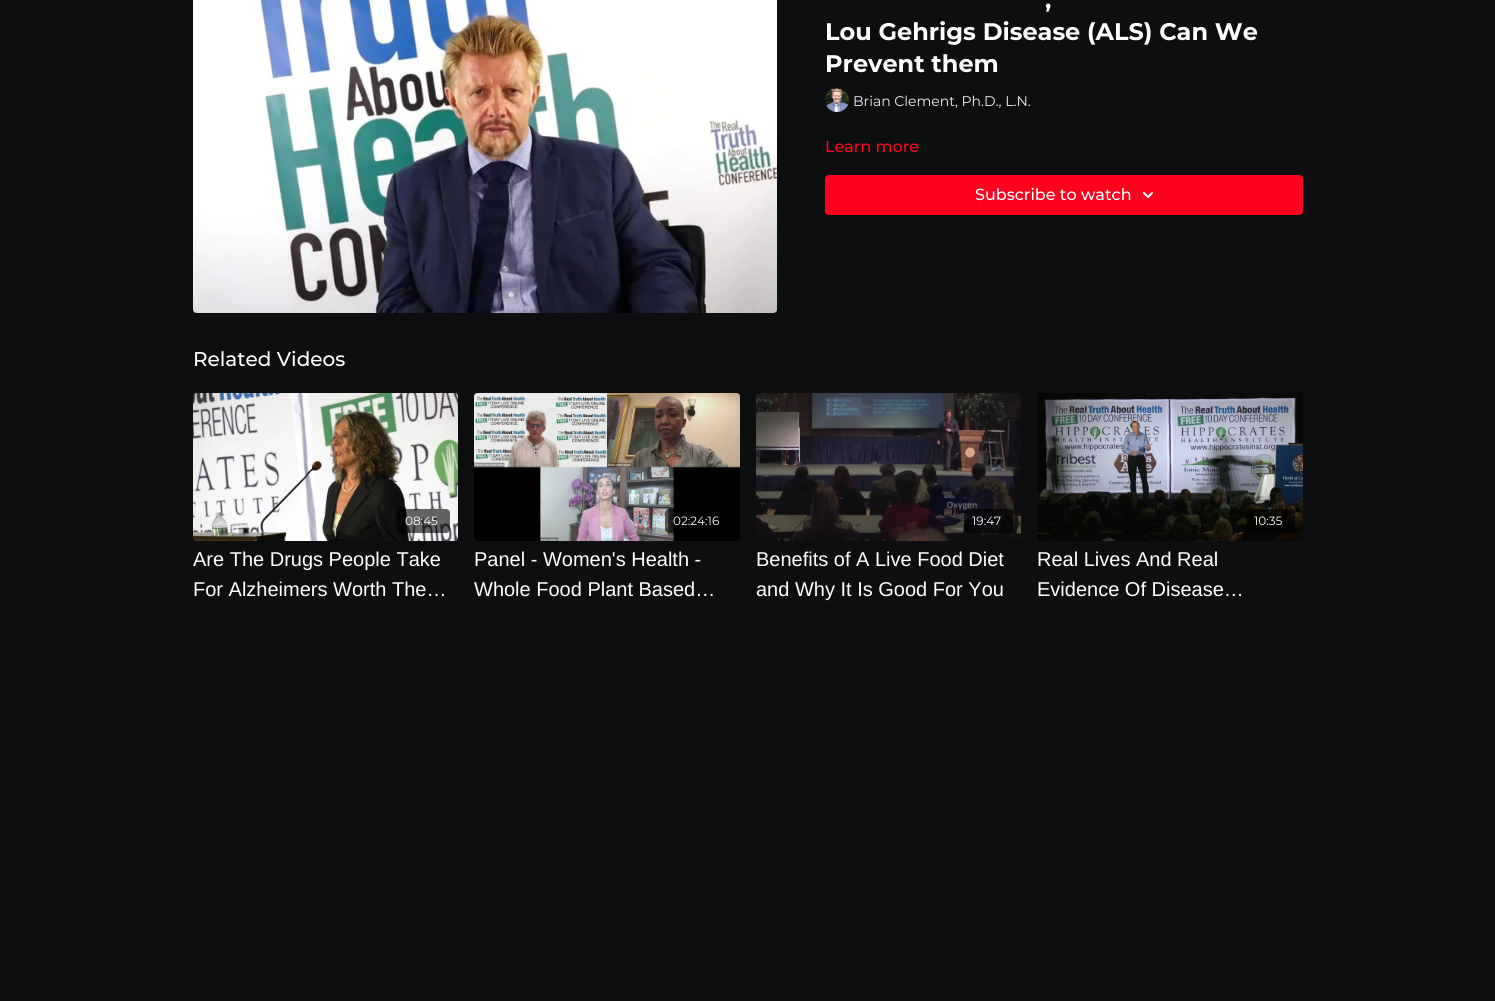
#include <cairo/cairo.h>
#include <math.h>
#include <stddef.h>

typedef struct { double x, y; const char *s; } line_t;
static cairo_t *cr;

static void rgb(unsigned color)
{
	cairo_set_source_rgb(cr, (color >> 16) / 255.0, (color >> 8 & 255) / 255.0, (color & 255) / 255.0);
}

static void rrect(double x, double y, double w, double h, double r)
{
	cairo_new_sub_path(cr);
	cairo_arc(cr, x + w - r, y + h - r, r, 0, M_PI / 2);
	cairo_arc(cr, x + r, y + h - r, r, M_PI / 2, M_PI);
	cairo_arc(cr, x + r, y + r, r, M_PI, 1.5 * M_PI);
	cairo_arc(cr, x + w - r, y + r, r, 1.5 * M_PI, 2 * M_PI);
	cairo_close_path(cr);
}

static void image(const char *path, double x, double y, double w, double h)
{
	cairo_surface_t *image = cairo_image_surface_create_from_png(path);
	cairo_save(cr);
	cairo_set_source_surface(cr, image, x, y);
	cairo_rectangle(cr, x, y, w, h);
	cairo_fill(cr);
	cairo_restore(cr);
	cairo_surface_destroy(image);
}

int main(void) {
	cairo_surface_t *surface = cairo_image_surface_create(CAIRO_FORMAT_RGB24, 1495, 1001);
	cr = cairo_create(surface);
	cairo_font_options_t *options = cairo_font_options_create();
	cairo_font_options_set_hint_metrics(options, CAIRO_HINT_METRICS_OFF);
	cairo_font_options_set_hint_style(options, CAIRO_HINT_STYLE_NONE);
	cairo_set_font_options(cr, options);
	cairo_set_miter_limit(cr, 4);
	rgb(0x0d0e10);
	cairo_paint(cr);
	image("img/1.png", 193, 0, 584, 313);
	image("img/2.png", 825, 88, 24, 24);
	rgb(0xff001f);
	rrect(825, 175, 478, 40, 4);
	cairo_fill(cr);
	image("img/3.png", 1143, 192, 10, 6);
	image("img/4.png", 193, 393, 265, 148);
	cairo_set_source_rgba(cr, 0, 0, 0, 0.6);
	rrect(397, 509, 53, 24, 4);
	cairo_fill(cr);
	image("img/5.png", 474, 393, 266, 148);
	rrect(665, 509, 67, 24, 4);
	cairo_fill(cr);
	image("img/6.png", 756, 393, 265, 148);
	rrect(964, 509, 49, 24, 4);
	cairo_fill(cr);
	image("img/7.png", 1037, 393, 266, 148);
	rrect(1246, 509, 49, 24, 4);
	cairo_fill(cr);
	cairo_select_font_face(cr, "Montserrat", CAIRO_FONT_SLANT_NORMAL, CAIRO_FONT_WEIGHT_BOLD);
	cairo_set_font_size(cr, 24);
	rgb(0xffffff);
	{
		static const line_t items[] = {
			{1045, 8, ","},
			{825, 40, "Lou Gehrigs Disease (ALS) Can We"},
			{825, 72, "Prevent them"},
		};
		for (size_t i = 0; i < sizeof items / sizeof *items; i++) {
			cairo_move_to(cr, items[i].x, items[i].y);
			cairo_show_text(cr, items[i].s);
		}
	}
	cairo_select_font_face(cr, "Montserrat", CAIRO_FONT_SLANT_NORMAL, CAIRO_FONT_WEIGHT_NORMAL);
	cairo_set_font_size(cr, 14);
	rgb(0xeeeeee);
	cairo_move_to(cr, 853, 106);
	cairo_show_text(cr, "Brian Clement, Ph.D., L.N.");
	cairo_select_font_face(cr, "Montserrat Medium", CAIRO_FONT_SLANT_NORMAL, CAIRO_FONT_WEIGHT_NORMAL);
	cairo_set_font_size(cr, 16);
	rgb(0xff001f);
	cairo_move_to(cr, 825, 152);
	cairo_show_text(cr, "Learn more");
	rgb(0xffffff);
	cairo_move_to(cr, 975, 200);
	cairo_show_text(cr, "Subscribe to watch");
	cairo_set_font_size(cr, 20);
	cairo_move_to(cr, 193, 366);
	cairo_show_text(cr, "Related Videos");
	cairo_select_font_face(cr, "Montserrat", CAIRO_FONT_SLANT_NORMAL, CAIRO_FONT_WEIGHT_NORMAL);
	cairo_set_font_size(cr, 12);
	cairo_move_to(cr, 405, 525);
	cairo_show_text(cr, "08:45");
	cairo_select_font_face(cr, "Liberation Sans", CAIRO_FONT_SLANT_NORMAL, CAIRO_FONT_WEIGHT_NORMAL);
	cairo_set_font_size(cr, 20);
	cairo_move_to(cr, 193, 566);
	cairo_show_text(cr, "Are The Drugs People Take");
	cairo_move_to(cr, 193, 596);
	cairo_show_text(cr, "For Alzheimers Worth The…");
	cairo_select_font_face(cr, "Montserrat", CAIRO_FONT_SLANT_NORMAL, CAIRO_FONT_WEIGHT_NORMAL);
	cairo_set_font_size(cr, 12);
	cairo_move_to(cr, 673, 525);
	cairo_show_text(cr, "02:24:16");
	cairo_select_font_face(cr, "Liberation Sans", CAIRO_FONT_SLANT_NORMAL, CAIRO_FONT_WEIGHT_NORMAL);
	cairo_set_font_size(cr, 20);
	cairo_move_to(cr, 474, 566);
	cairo_show_text(cr, "Panel - Women's Health -");
	cairo_move_to(cr, 474, 596);
	cairo_show_text(cr, "Whole Food Plant Based…");
	cairo_select_font_face(cr, "Montserrat", CAIRO_FONT_SLANT_NORMAL, CAIRO_FONT_WEIGHT_NORMAL);
	cairo_set_font_size(cr, 12);
	cairo_move_to(cr, 972, 525);
	cairo_show_text(cr, "19:47");
	cairo_select_font_face(cr, "Liberation Sans", CAIRO_FONT_SLANT_NORMAL, CAIRO_FONT_WEIGHT_NORMAL);
	cairo_set_font_size(cr, 20);
	cairo_move_to(cr, 756, 566);
	cairo_show_text(cr, "Benefits of A Live Food Diet");
	cairo_move_to(cr, 756, 596);
	cairo_show_text(cr, "and Why It Is Good For You");
	cairo_select_font_face(cr, "Montserrat", CAIRO_FONT_SLANT_NORMAL, CAIRO_FONT_WEIGHT_NORMAL);
	cairo_set_font_size(cr, 12);
	cairo_move_to(cr, 1254, 525);
	cairo_show_text(cr, "10:35");
	cairo_select_font_face(cr, "Liberation Sans", CAIRO_FONT_SLANT_NORMAL, CAIRO_FONT_WEIGHT_NORMAL);
	cairo_set_font_size(cr, 20);
	cairo_move_to(cr, 1037, 566);
	cairo_show_text(cr, "Real Lives And Real");
	cairo_move_to(cr, 1037, 596);
	cairo_show_text(cr, "Evidence Of Disease…");
	cairo_surface_write_to_png(surface, "page.png");
	cairo_font_options_destroy(options);
	cairo_destroy(cr);
	cairo_surface_destroy(surface);
	return 0;
}
